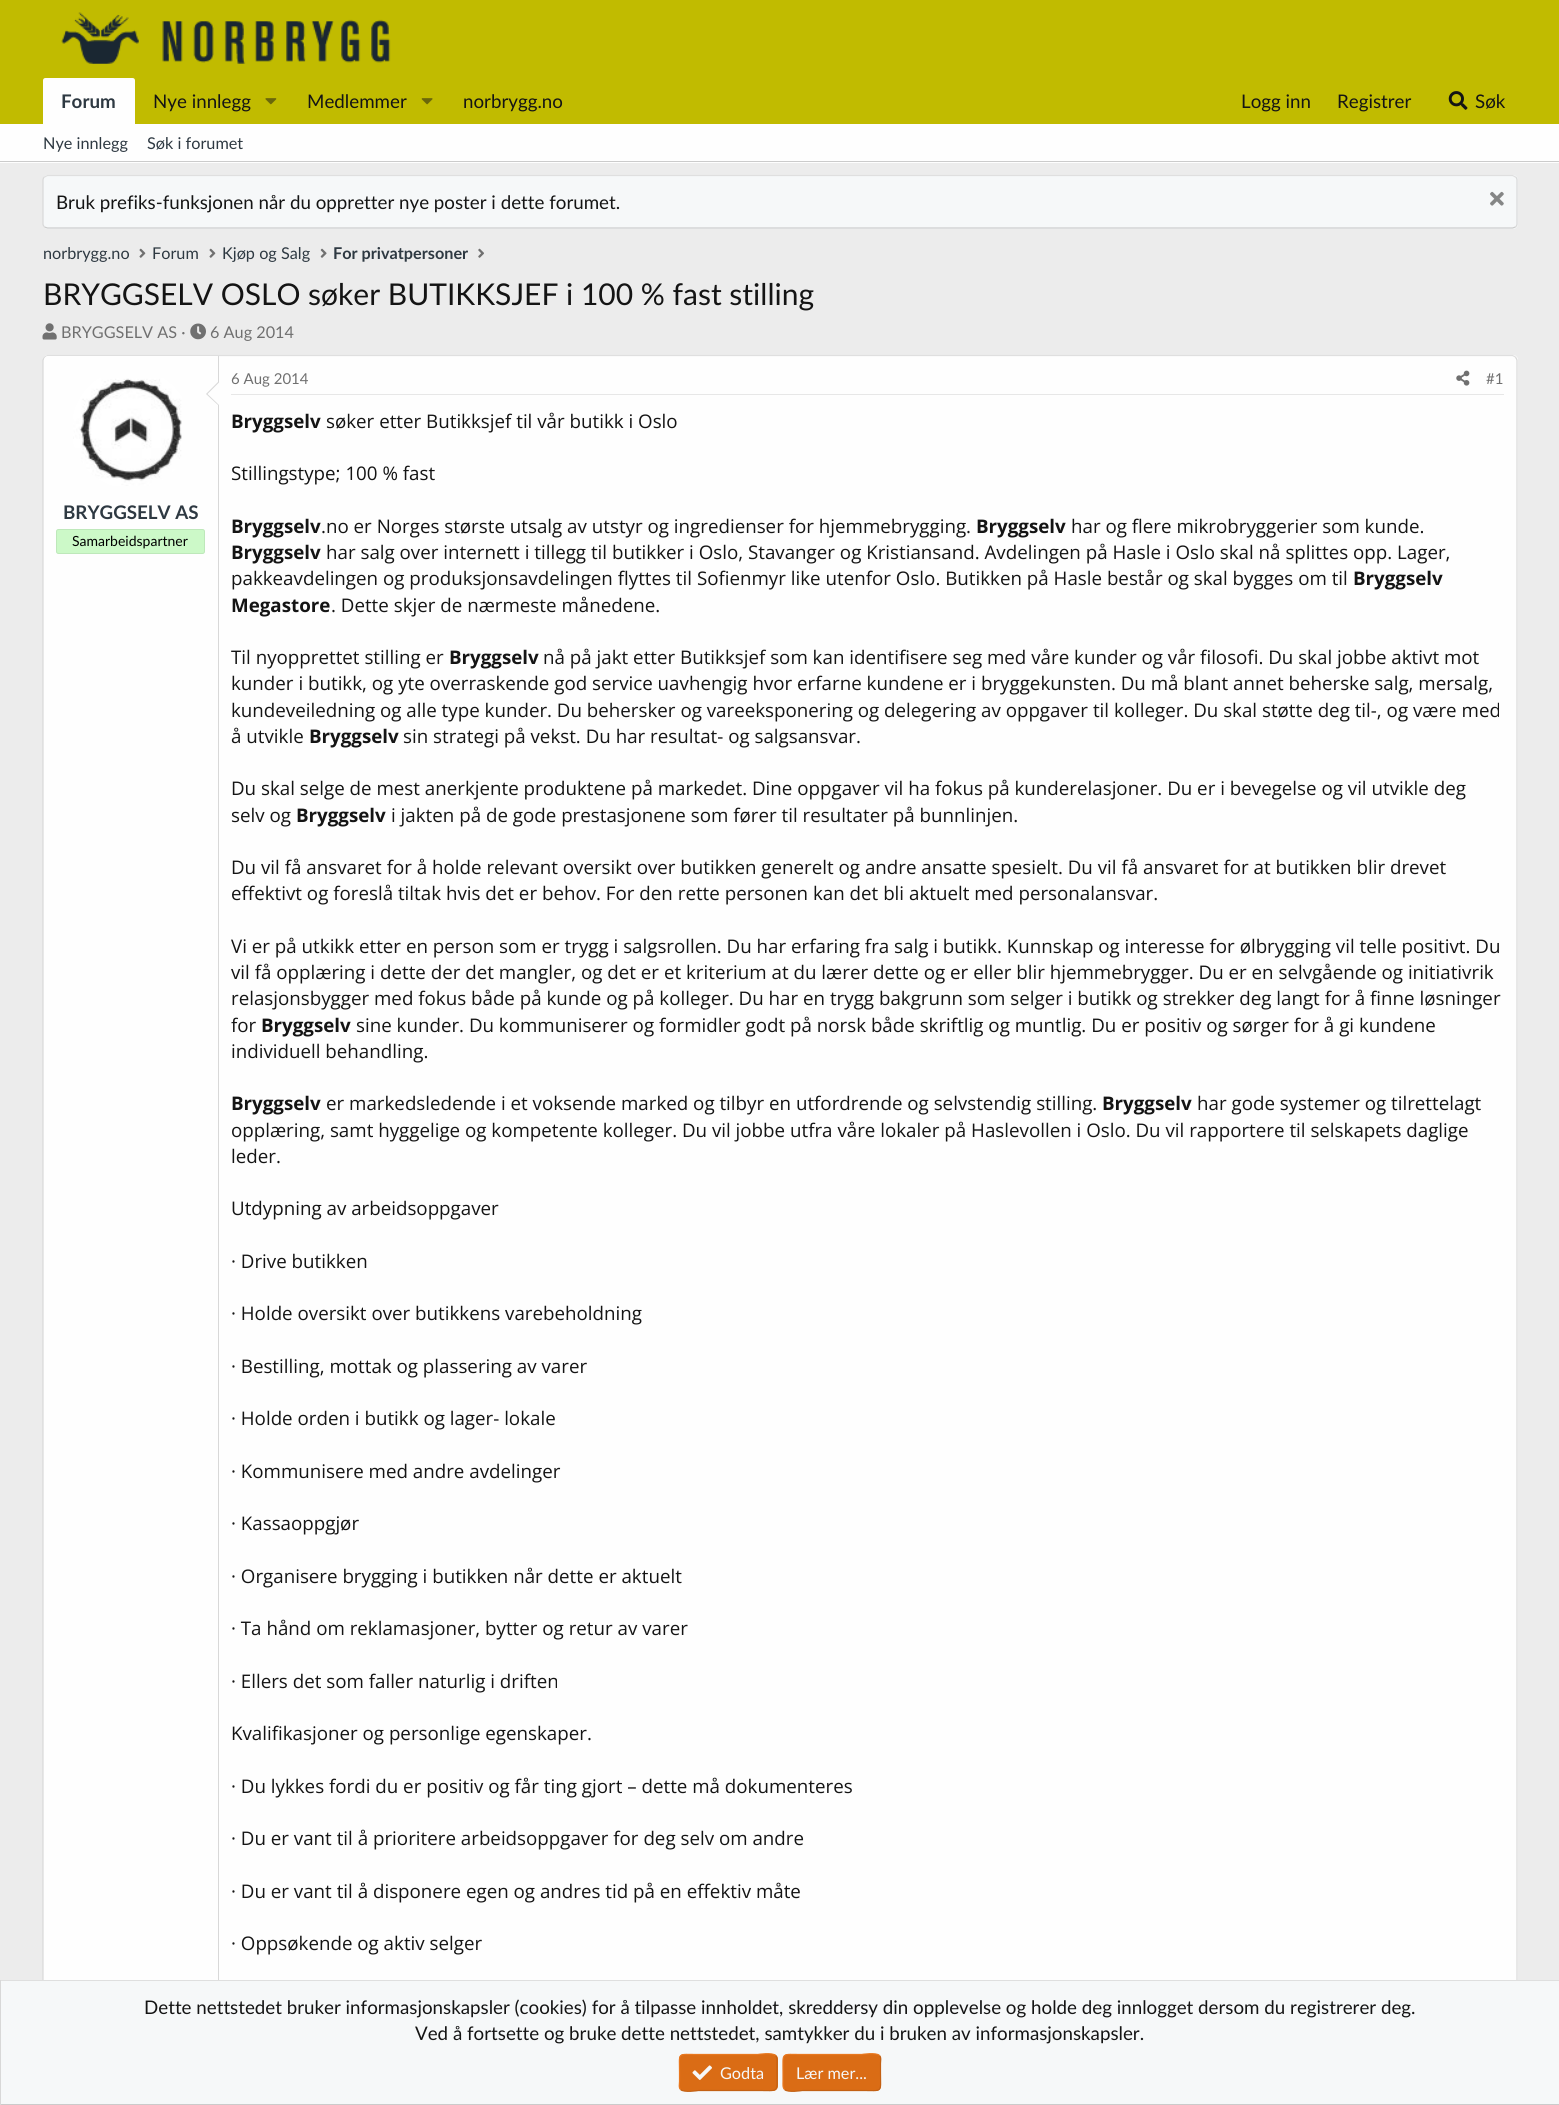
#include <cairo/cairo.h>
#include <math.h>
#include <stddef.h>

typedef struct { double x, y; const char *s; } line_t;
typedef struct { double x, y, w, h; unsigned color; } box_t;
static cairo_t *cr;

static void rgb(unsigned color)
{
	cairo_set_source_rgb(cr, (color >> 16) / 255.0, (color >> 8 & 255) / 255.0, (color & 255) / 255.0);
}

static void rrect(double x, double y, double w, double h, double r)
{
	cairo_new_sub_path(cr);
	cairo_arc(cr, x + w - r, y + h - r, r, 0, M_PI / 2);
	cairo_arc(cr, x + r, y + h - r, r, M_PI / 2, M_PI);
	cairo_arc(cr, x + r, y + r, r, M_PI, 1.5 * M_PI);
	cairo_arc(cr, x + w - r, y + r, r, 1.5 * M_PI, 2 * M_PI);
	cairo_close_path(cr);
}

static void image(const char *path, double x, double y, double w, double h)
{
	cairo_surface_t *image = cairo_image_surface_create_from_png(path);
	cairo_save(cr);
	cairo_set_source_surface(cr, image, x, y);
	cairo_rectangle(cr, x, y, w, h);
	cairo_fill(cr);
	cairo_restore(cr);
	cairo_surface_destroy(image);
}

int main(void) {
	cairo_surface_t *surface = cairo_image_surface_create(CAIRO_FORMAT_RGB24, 1559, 2105);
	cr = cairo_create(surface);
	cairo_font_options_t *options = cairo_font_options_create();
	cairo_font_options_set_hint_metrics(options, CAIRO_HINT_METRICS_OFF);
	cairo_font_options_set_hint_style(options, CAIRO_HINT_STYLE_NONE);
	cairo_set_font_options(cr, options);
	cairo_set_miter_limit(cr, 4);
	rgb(0xececec);
	cairo_paint(cr);
	rgb(0xc1bb00);
	cairo_rectangle(cr, 0, 0, 1559, 124);
	cairo_fill(cr);
	image("img/1.png", 61, 12, 330, 52);
	rgb(0xfefefe);
	cairo_new_path(cr);
	cairo_move_to(cr, 45.5, 78);
	cairo_line_to(cr, 132.5, 78);
	cairo_curve_to(cr, 134, 78, 135, 79, 135, 80.5);
	cairo_line_to(cr, 135, 124);
	cairo_line_to(cr, 43, 124);
	cairo_line_to(cr, 43, 80.5);
	cairo_curve_to(cr, 43, 79, 44, 78, 45.5, 78);
	cairo_close_path(cr);
	cairo_fill(cr);
	image("img/2.png", 265, 98, 12, 7);
	image("img/3.png", 421, 98, 12, 7);
	image("img/4.png", 1448, 91, 20, 19);
	cairo_rectangle(cr, 0, 124, 1559, 39);
	cairo_fill(cr);
	rgb(0xcbcbcb);
	cairo_rectangle(cr, 0, 161, 1559, 1);
	cairo_fill(cr);
	rgb(0xf6f8f9);
	rrect(43, 175, 1475, 54, 5);
	cairo_fill(cr);
	cairo_new_path(cr);
	cairo_move_to(cr, 44.5, 177);
	cairo_line_to(cr, 47.5, 175.5);
	cairo_line_to(cr, 1512.5, 175.5);
	cairo_line_to(cr, 1515.5, 177);
	rgb(0xdfdfdf);
	cairo_set_line_width(cr, 1.2);
	cairo_stroke(cr);
	cairo_new_path(cr);
	cairo_move_to(cr, 1515.5, 177);
	cairo_curve_to(cr, 1516.5, 177.5, 1517, 179, 1517, 180);
	cairo_line_to(cr, 1517, 224);
	cairo_curve_to(cr, 1517, 225, 1516.5, 226, 1515.5, 227);
	rgb(0xd8d8d8);
	cairo_stroke(cr);
	cairo_new_path(cr);
	cairo_move_to(cr, 1515.5, 227);
	cairo_line_to(cr, 1512.5, 228);
	cairo_line_to(cr, 47.5, 228);
	cairo_line_to(cr, 44.5, 227);
	rgb(0xcbcbcb);
	cairo_stroke(cr);
	cairo_new_path(cr);
	cairo_move_to(cr, 44.5, 227);
	cairo_curve_to(cr, 43.5, 226, 43, 225, 43, 224);
	cairo_line_to(cr, 43, 180);
	cairo_curve_to(cr, 43, 179, 43.5, 177.5, 44.5, 177);
	rgb(0xd8d8d8);
	cairo_stroke(cr);
	image("img/5.png", 1490, 191, 14, 15);
	image("img/6.png", 139, 248, 7, 10);
	image("img/6.png", 209, 248, 7, 10);
	image("img/7.png", 320, 248, 7, 10);
	image("img/8.png", 478, 248, 6, 10);
	image("img/9.png", 42, 323, 15, 17);
	image("img/10.png", 190, 323, 16, 17);
	rgb(0xfefefe);
	rrect(43, 355, 1475, 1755, 5);
	cairo_fill(cr);
	cairo_new_path(cr);
	cairo_move_to(cr, 44.5, 357);
	cairo_line_to(cr, 47.5, 355.5);
	cairo_line_to(cr, 1512.5, 355.5);
	cairo_line_to(cr, 1515.5, 357);
	rgb(0xdfdfdf);
	cairo_stroke(cr);
	cairo_new_path(cr);
	cairo_move_to(cr, 1515.5, 357);
	cairo_line_to(cr, 1517, 360);
	cairo_line_to(cr, 1517, 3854);
	cairo_line_to(cr, 1515.5, 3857);
	rgb(0xd8d8d8);
	cairo_stroke(cr);
	cairo_new_path(cr);
	cairo_move_to(cr, 44.5, 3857);
	cairo_line_to(cr, 43, 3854);
	cairo_line_to(cr, 43, 360);
	cairo_line_to(cr, 44.5, 357);
	cairo_stroke(cr);
	rgb(0xfefefe);
	cairo_new_path(cr);
	cairo_move_to(cr, 48, 356);
	cairo_line_to(cr, 219, 356);
	cairo_line_to(cr, 219, 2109);
	cairo_line_to(cr, 48, 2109);
	cairo_curve_to(cr, 46, 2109, 44, 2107, 44, 2105);
	cairo_line_to(cr, 44, 360);
	cairo_curve_to(cr, 44, 358, 46, 356, 48, 356);
	cairo_close_path(cr);
	cairo_fill(cr);
	rgb(0xd8d8d8);
	cairo_rectangle(cr, 218, 356, 1, 1624);
	cairo_fill(cr);
	image("img/11.png", 73, 378, 109, 108);
	cairo_new_path(cr);
	cairo_move_to(cr, 219, 381);
	cairo_line_to(cr, 219, 406);
	cairo_line_to(cr, 206, 394);
	cairo_close_path(cr);
	cairo_fill(cr);
	rgb(0xfefefe);
	cairo_new_path(cr);
	cairo_move_to(cr, 219, 382.5);
	cairo_line_to(cr, 219, 405);
	cairo_line_to(cr, 207.5, 394);
	cairo_close_path(cr);
	cairo_fill(cr);
	rgb(0xccf9c8);
	rrect(56.5, 529.5, 148, 24, 2);
	cairo_fill_preserve(cr);
	rgb(0xbee8ba);
	cairo_set_line_width(cr, 1);
	cairo_stroke(cr);
	rgb(0xe7e7e7);
	cairo_rectangle(cr, 231, 394, 1273, 1);
	cairo_fill(cr);
	image("img/12.png", 1456, 370, 14, 16);
	{
		static const box_t items[] = {
			{1, 1981, 1558, 123, 0xf6f8f9},
			{0, 1980, 1559, 1, 0xdfdfdf},
			{0, 2104, 1559, 1, 0xcbcbcb},
			{0, 1980, 1, 125, 0xd8d8d8},
		};
		for (size_t i = 0; i < sizeof items / sizeof *items; i++) {
			rgb(items[i].color);
			cairo_rectangle(cr, items[i].x, items[i].y, items[i].w, items[i].h);
			cairo_fill(cr);
		}
	}
	rgb(0xda6c15);
	rrect(679, 2054, 99, 37, 5);
	cairo_fill(cr);
	cairo_new_path(cr);
	cairo_move_to(cr, 775.5, 2055.5);
	cairo_curve_to(cr, 777.5, 2057.5, 777, 2061, 777, 2063.5);
	cairo_line_to(cr, 777, 2072.5);
	cairo_curve_to(cr, 777, 2093.5, 779.5, 2090.5, 757.5, 2090.5);
	cairo_line_to(cr, 698.5, 2090.5);
	cairo_curve_to(cr, 698.5, 2090.5, 684, 2093, 680.5, 2089.5);
	rgb(0xc36013);
	cairo_set_line_width(cr, 1.2);
	cairo_stroke(cr);
	cairo_new_path(cr);
	cairo_move_to(cr, 680.5, 2089.5);
	cairo_curve_to(cr, 678.5, 2087.5, 679.5, 2084, 679.5, 2081.5);
	cairo_line_to(cr, 679.5, 2072.5);
	cairo_curve_to(cr, 679.5, 2051.5, 676.5, 2054.5, 698.5, 2054.5);
	cairo_line_to(cr, 757.5, 2054.5);
	cairo_curve_to(cr, 758, 2054.5, 772, 2052, 775.5, 2055.5);
	rgb(0xe9781f);
	cairo_stroke(cr);
	image("img/13.png", 692, 2065, 20, 15);
	rgb(0xda6c15);
	rrect(783, 2054, 98, 37, 5);
	cairo_fill(cr);
	cairo_new_path(cr);
	cairo_move_to(cr, 879.5, 2055.5);
	cairo_curve_to(cr, 881.5, 2057.5, 880.5, 2061, 880.5, 2063.5);
	cairo_line_to(cr, 880.5, 2072.5);
	cairo_curve_to(cr, 880.5, 2093.5, 883.5, 2090.5, 861.5, 2090.5);
	cairo_line_to(cr, 802.5, 2090.5);
	cairo_curve_to(cr, 802, 2090.5, 788, 2093, 784.5, 2089.5);
	rgb(0xc36013);
	cairo_stroke(cr);
	cairo_new_path(cr);
	cairo_move_to(cr, 784.5, 2089.5);
	cairo_curve_to(cr, 782.5, 2087.5, 783, 2084, 783, 2081.5);
	cairo_line_to(cr, 783, 2072.5);
	cairo_curve_to(cr, 783, 2051.5, 780.5, 2054.5, 802.5, 2054.5);
	cairo_line_to(cr, 861.5, 2054.5);
	cairo_curve_to(cr, 861.5, 2054.5, 876, 2052, 879.5, 2055.5);
	rgb(0xe9781f);
	cairo_stroke(cr);
	cairo_select_font_face(cr, "Lato", CAIRO_FONT_SLANT_NORMAL, CAIRO_FONT_WEIGHT_BOLD);
	cairo_set_font_size(cr, 18.75);
	rgb(0x2e3942);
	cairo_move_to(cr, 61, 108);
	cairo_show_text(cr, "Forum");
	cairo_select_font_face(cr, "Lato", CAIRO_FONT_SLANT_NORMAL, CAIRO_FONT_WEIGHT_NORMAL);
	rgb(0x141414);
	{
		static const line_t items[] = {
			{153, 108, "Nye innlegg"},
			{307, 108, "Medlemmer"},
			{463, 108, "norbrygg.no"},
			{1241, 108, "Logg inn"},
			{1337, 108, "Registrer"},
			{1475, 108, "Søk"},
		};
		for (size_t i = 0; i < sizeof items / sizeof *items; i++) {
			cairo_move_to(cr, items[i].x, items[i].y);
			cairo_show_text(cr, items[i].s);
		}
	}
	cairo_set_font_size(cr, 16.25);
	rgb(0x2e3942);
	cairo_move_to(cr, 43, 149);
	cairo_show_text(cr, "Nye innlegg");
	cairo_move_to(cr, 147, 149);
	cairo_show_text(cr, "Søk i forumet");
	cairo_set_font_size(cr, 18.75);
	rgb(0x141414);
	cairo_move_to(cr, 56, 209);
	cairo_show_text(cr, "Bruk prefiks-funksjonen når du oppretter nye poster i dette forumet.");
	cairo_set_font_size(cr, 16.25);
	rgb(0x2e3942);
	{
		static const line_t items[] = {
			{43, 259, "norbrygg.no"},
			{152, 259, "Forum"},
			{222, 259, "Kjøp og Salg"},
		};
		for (size_t i = 0; i < sizeof items / sizeof *items; i++) {
			cairo_move_to(cr, items[i].x, items[i].y);
			cairo_show_text(cr, items[i].s);
		}
	}
	cairo_select_font_face(cr, "Lato", CAIRO_FONT_SLANT_NORMAL, CAIRO_FONT_WEIGHT_BOLD);
	cairo_move_to(cr, 333, 259);
	cairo_show_text(cr, "For privatpersoner");
	cairo_select_font_face(cr, "Lato", CAIRO_FONT_SLANT_NORMAL, CAIRO_FONT_WEIGHT_NORMAL);
	cairo_set_font_size(cr, 30);
	rgb(0x141414);
	cairo_move_to(cr, 43, 305);
	cairo_show_text(cr, "BRYGGSELV OSLO søker BUTIKKSJEF i 100 % fast stilling");
	cairo_set_font_size(cr, 16.25);
	rgb(0x707070);
	cairo_move_to(cr, 61, 338);
	cairo_show_text(cr, "BRYGGSELV AS ·");
	cairo_move_to(cr, 210, 338);
	cairo_show_text(cr, "6 Aug 2014");
	cairo_select_font_face(cr, "Lato", CAIRO_FONT_SLANT_NORMAL, CAIRO_FONT_WEIGHT_BOLD);
	cairo_set_font_size(cr, 18.75);
	rgb(0x2e3942);
	cairo_move_to(cr, 63, 519);
	cairo_show_text(cr, "BRYGGSELV AS");
	cairo_select_font_face(cr, "Lato", CAIRO_FONT_SLANT_NORMAL, CAIRO_FONT_WEIGHT_NORMAL);
	cairo_set_font_size(cr, 14);
	rgb(0x000000);
	cairo_move_to(cr, 72, 546);
	cairo_show_text(cr, "Samarbeidspartner");
	cairo_set_font_size(cr, 15);
	rgb(0x707070);
	cairo_move_to(cr, 231, 384);
	cairo_show_text(cr, "6 Aug 2014");
	cairo_move_to(cr, 1486, 384);
	cairo_show_text(cr, "#1");
	cairo_select_font_face(cr, "Open Sans", CAIRO_FONT_SLANT_NORMAL, CAIRO_FONT_WEIGHT_BOLD);
	cairo_set_font_size(cr, 18.75);
	rgb(0x141414);
	cairo_move_to(cr, 231, 428);
	cairo_show_text(cr, "Bryggselv");
	cairo_select_font_face(cr, "Open Sans", CAIRO_FONT_SLANT_NORMAL, CAIRO_FONT_WEIGHT_NORMAL);
	cairo_move_to(cr, 326, 428);
	cairo_show_text(cr, "søker etter Butikksjef til vår butikk i Oslo");
	cairo_move_to(cr, 231, 480);
	cairo_show_text(cr, "Stillingstype; 100 % fast");
	cairo_select_font_face(cr, "Open Sans", CAIRO_FONT_SLANT_NORMAL, CAIRO_FONT_WEIGHT_BOLD);
	cairo_move_to(cr, 231, 533);
	cairo_show_text(cr, "Bryggselv");
	cairo_select_font_face(cr, "Open Sans", CAIRO_FONT_SLANT_NORMAL, CAIRO_FONT_WEIGHT_NORMAL);
	cairo_move_to(cr, 321, 533);
	cairo_show_text(cr, ".no er Norges største utsalg av utstyr og ingredienser for hjemmebrygging.");
	cairo_select_font_face(cr, "Open Sans", CAIRO_FONT_SLANT_NORMAL, CAIRO_FONT_WEIGHT_BOLD);
	cairo_move_to(cr, 976, 533);
	cairo_show_text(cr, "Bryggselv");
	cairo_select_font_face(cr, "Open Sans", CAIRO_FONT_SLANT_NORMAL, CAIRO_FONT_WEIGHT_NORMAL);
	cairo_move_to(cr, 1071, 533);
	cairo_show_text(cr, "har og flere mikrobryggerier som kunde.");
	cairo_select_font_face(cr, "Open Sans", CAIRO_FONT_SLANT_NORMAL, CAIRO_FONT_WEIGHT_BOLD);
	cairo_move_to(cr, 231, 559);
	cairo_show_text(cr, "Bryggselv");
	cairo_select_font_face(cr, "Open Sans", CAIRO_FONT_SLANT_NORMAL, CAIRO_FONT_WEIGHT_NORMAL);
	cairo_move_to(cr, 326, 559);
	cairo_show_text(cr, "har salg over internett i tillegg til butikker i Oslo, Stavanger og Kristiansand. Avdelingen på Hasle i Oslo skal nå splittes opp. Lager,");
	cairo_move_to(cr, 231, 585);
	cairo_show_text(cr, "pakkeavdelingen og produksjonsavdelingen flyttes til Sofienmyr like utenfor Oslo. Butikken på Hasle består og skal bygges om til");
	cairo_select_font_face(cr, "Open Sans", CAIRO_FONT_SLANT_NORMAL, CAIRO_FONT_WEIGHT_BOLD);
	cairo_move_to(cr, 1353, 585);
	cairo_show_text(cr, "Bryggselv");
	cairo_move_to(cr, 231, 612);
	cairo_show_text(cr, "Megastore");
	cairo_select_font_face(cr, "Open Sans", CAIRO_FONT_SLANT_NORMAL, CAIRO_FONT_WEIGHT_NORMAL);
	cairo_move_to(cr, 331, 612);
	cairo_show_text(cr, ". Dette skjer de nærmeste månedene.");
	cairo_move_to(cr, 231, 664);
	cairo_show_text(cr, "Til nyopprettet stilling er");
	cairo_select_font_face(cr, "Open Sans", CAIRO_FONT_SLANT_NORMAL, CAIRO_FONT_WEIGHT_BOLD);
	cairo_move_to(cr, 449, 664);
	cairo_show_text(cr, "Bryggselv");
	cairo_select_font_face(cr, "Open Sans", CAIRO_FONT_SLANT_NORMAL, CAIRO_FONT_WEIGHT_NORMAL);
	{
		static const line_t items[] = {
			{543, 664, "nå på jakt etter Butikksjef som kan identifisere seg med våre kunder og vår filosofi. Du skal jobbe aktivt mot"},
			{231, 690, "kunder i butikk, og yte overraskende god service uavhengig hvor erfarne kundene er i bryggekunsten. Du må blant annet beherske salg, mersalg,"},
			{231, 717, "kundeveiledning og alle type kunder. Du behersker og vareeksponering og delegering av oppgaver til kolleger. Du skal støtte deg til-, og være med"},
			{231, 743, "å utvikle"},
		};
		for (size_t i = 0; i < sizeof items / sizeof *items; i++) {
			cairo_move_to(cr, items[i].x, items[i].y);
			cairo_show_text(cr, items[i].s);
		}
	}
	cairo_select_font_face(cr, "Open Sans", CAIRO_FONT_SLANT_NORMAL, CAIRO_FONT_WEIGHT_BOLD);
	cairo_move_to(cr, 309, 743);
	cairo_show_text(cr, "Bryggselv");
	cairo_select_font_face(cr, "Open Sans", CAIRO_FONT_SLANT_NORMAL, CAIRO_FONT_WEIGHT_NORMAL);
	{
		static const line_t items[] = {
			{403, 743, "sin strategi på vekst. Du har resultat- og salgsansvar."},
			{231, 795, "Du skal selge de mest anerkjente produktene på markedet. Dine oppgaver vil ha fokus på kunderelasjoner. Du er i bevegelse og vil utvikle deg"},
			{231, 822, "selv og"},
		};
		for (size_t i = 0; i < sizeof items / sizeof *items; i++) {
			cairo_move_to(cr, items[i].x, items[i].y);
			cairo_show_text(cr, items[i].s);
		}
	}
	cairo_select_font_face(cr, "Open Sans", CAIRO_FONT_SLANT_NORMAL, CAIRO_FONT_WEIGHT_BOLD);
	cairo_move_to(cr, 296, 822);
	cairo_show_text(cr, "Bryggselv");
	cairo_select_font_face(cr, "Open Sans", CAIRO_FONT_SLANT_NORMAL, CAIRO_FONT_WEIGHT_NORMAL);
	{
		static const line_t items[] = {
			{391, 822, "i jakten på de gode prestasjonene som fører til resultater på bunnlinjen."},
			{231, 874, "Du vil få ansvaret for å holde relevant oversikt over butikken generelt og andre ansatte spesielt. Du vil få ansvaret for at butikken blir drevet"},
			{231, 900, "effektivt og foreslå tiltak hvis det er behov. For den rette personen kan det bli aktuelt med personalansvar."},
			{231, 953, "Vi er på utkikk etter en person som er trygg i salgsrollen. Du har erfaring fra salg i butikk. Kunnskap og interesse for ølbrygging vil telle positivt. Du"},
			{231, 979, "vil få opplæring i dette der det mangler, og det er et kriterium at du lærer dette og er eller blir hjemmebrygger. Du er en selvgående og initiativrik"},
			{231, 1005, "relasjonsbygger med fokus både på kunde og på kolleger. Du har en trygg bakgrunn som selger i butikk og strekker deg langt for å finne løsninger"},
			{231, 1032, "for"},
		};
		for (size_t i = 0; i < sizeof items / sizeof *items; i++) {
			cairo_move_to(cr, items[i].x, items[i].y);
			cairo_show_text(cr, items[i].s);
		}
	}
	cairo_select_font_face(cr, "Open Sans", CAIRO_FONT_SLANT_NORMAL, CAIRO_FONT_WEIGHT_BOLD);
	cairo_move_to(cr, 261, 1032);
	cairo_show_text(cr, "Bryggselv");
	cairo_select_font_face(cr, "Open Sans", CAIRO_FONT_SLANT_NORMAL, CAIRO_FONT_WEIGHT_NORMAL);
	cairo_move_to(cr, 356, 1032);
	cairo_show_text(cr, "sine kunder. Du kommuniserer og formidler godt på norsk både skriftlig og muntlig. Du er positiv og sørger for å gi kundene");
	cairo_move_to(cr, 231, 1058);
	cairo_show_text(cr, "individuell behandling.");
	cairo_select_font_face(cr, "Open Sans", CAIRO_FONT_SLANT_NORMAL, CAIRO_FONT_WEIGHT_BOLD);
	cairo_move_to(cr, 231, 1110);
	cairo_show_text(cr, "Bryggselv");
	cairo_select_font_face(cr, "Open Sans", CAIRO_FONT_SLANT_NORMAL, CAIRO_FONT_WEIGHT_NORMAL);
	cairo_move_to(cr, 326, 1110);
	cairo_show_text(cr, "er markedsledende i et voksende marked og tilbyr en utfordrende og selvstendig stilling.");
	cairo_select_font_face(cr, "Open Sans", CAIRO_FONT_SLANT_NORMAL, CAIRO_FONT_WEIGHT_BOLD);
	cairo_move_to(cr, 1102, 1110);
	cairo_show_text(cr, "Bryggselv");
	cairo_select_font_face(cr, "Open Sans", CAIRO_FONT_SLANT_NORMAL, CAIRO_FONT_WEIGHT_NORMAL);
	{
		static const line_t items[] = {
			{1197, 1110, "har gode systemer og tilrettelagt"},
			{231, 1137, "opplæring, samt hyggelige og kompetente kolleger. Du vil jobbe utfra våre lokaler på Haslevollen i Oslo. Du vil rapportere til selskapets daglige"},
			{231, 1163, "leder."},
			{231, 1215, "Utdypning av arbeidsoppgaver"},
			{231, 1268, "· Drive butikken"},
			{231, 1320, "· Holde oversikt over butikkens varebeholdning"},
			{231, 1373, "· Bestilling, mottak og plassering av varer"},
			{231, 1425, "· Holde orden i butikk og lager- lokale"},
			{231, 1478, "· Kommunisere med andre avdelinger"},
			{231, 1530, "· Kassaoppgjør"},
			{231, 1583, "· Organisere brygging i butikken når dette er aktuelt"},
			{231, 1635, "· Ta hånd om reklamasjoner, bytter og retur av varer"},
			{231, 1688, "· Ellers det som faller naturlig i driften"},
			{231, 1740, "Kvalifikasjoner og personlige egenskaper."},
			{231, 1793, "· Du lykkes fordi du er positiv og får ting gjort – dette må dokumenteres"},
			{231, 1845, "· Du er vant til å prioritere arbeidsoppgaver for deg selv om andre"},
			{231, 1898, "· Du er vant til å disponere egen og andres tid på en effektiv måte"},
			{231, 1950, "· Oppsøkende og aktiv selger"},
		};
		for (size_t i = 0; i < sizeof items / sizeof *items; i++) {
			cairo_move_to(cr, items[i].x, items[i].y);
			cairo_show_text(cr, items[i].s);
		}
	}
	cairo_select_font_face(cr, "Lato", CAIRO_FONT_SLANT_NORMAL, CAIRO_FONT_WEIGHT_NORMAL);
	cairo_move_to(cr, 144, 2014);
	cairo_show_text(cr, "Dette nettstedet bruker informasjonskapsler (cookies) for å tilpasse innholdet, skreddersy din opplevelse og holde deg innlogget dersom du registrerer deg.");
	cairo_move_to(cr, 415, 2040);
	cairo_show_text(cr, "Ved å fortsette og bruke dette nettstedet, samtykker du i bruken av informasjonskapsler.");
	cairo_set_font_size(cr, 16.25);
	rgb(0xf6f8f9);
	cairo_move_to(cr, 720, 2079);
	cairo_show_text(cr, "Godta");
	cairo_move_to(cr, 796, 2079);
	cairo_show_text(cr, "Lær mer...");
	cairo_surface_write_to_png(surface, "page.png");
	cairo_font_options_destroy(options);
	cairo_destroy(cr);
	cairo_surface_destroy(surface);
	return 0;
}
